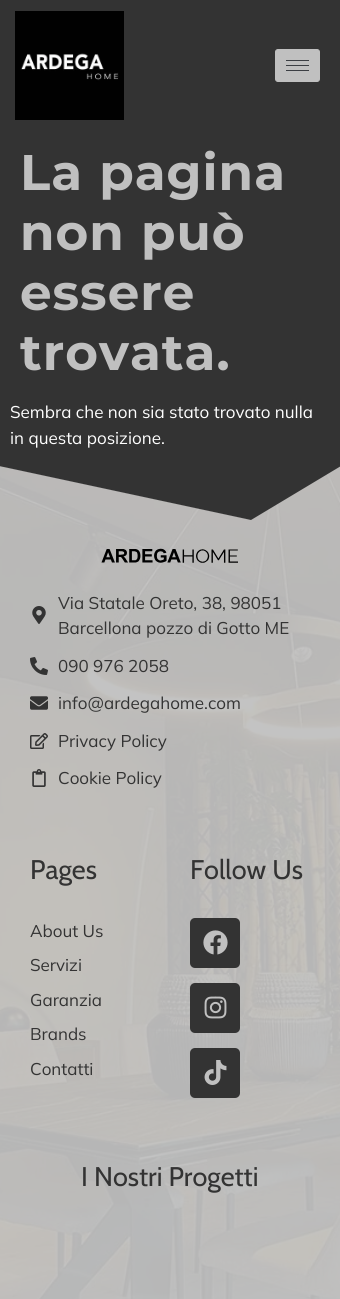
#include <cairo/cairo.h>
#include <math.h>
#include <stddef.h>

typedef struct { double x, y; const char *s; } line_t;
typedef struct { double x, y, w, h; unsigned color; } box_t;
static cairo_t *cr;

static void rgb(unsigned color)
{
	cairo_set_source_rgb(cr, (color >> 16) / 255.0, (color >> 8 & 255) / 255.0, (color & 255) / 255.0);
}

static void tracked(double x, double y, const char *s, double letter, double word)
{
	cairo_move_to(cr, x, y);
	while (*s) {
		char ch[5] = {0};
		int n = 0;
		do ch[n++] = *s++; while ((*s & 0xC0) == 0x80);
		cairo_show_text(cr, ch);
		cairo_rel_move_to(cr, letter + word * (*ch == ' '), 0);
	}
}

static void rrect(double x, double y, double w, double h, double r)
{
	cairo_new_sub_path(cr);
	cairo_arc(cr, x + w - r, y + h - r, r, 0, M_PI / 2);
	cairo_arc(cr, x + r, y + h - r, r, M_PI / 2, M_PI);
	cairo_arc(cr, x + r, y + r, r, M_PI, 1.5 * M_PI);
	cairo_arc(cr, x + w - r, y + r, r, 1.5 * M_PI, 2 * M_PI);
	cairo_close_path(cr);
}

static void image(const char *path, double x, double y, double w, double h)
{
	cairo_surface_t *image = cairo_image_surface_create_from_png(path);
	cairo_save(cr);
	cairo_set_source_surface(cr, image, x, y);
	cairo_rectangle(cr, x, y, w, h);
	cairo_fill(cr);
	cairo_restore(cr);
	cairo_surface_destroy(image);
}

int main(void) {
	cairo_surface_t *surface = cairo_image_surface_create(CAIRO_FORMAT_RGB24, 340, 1299);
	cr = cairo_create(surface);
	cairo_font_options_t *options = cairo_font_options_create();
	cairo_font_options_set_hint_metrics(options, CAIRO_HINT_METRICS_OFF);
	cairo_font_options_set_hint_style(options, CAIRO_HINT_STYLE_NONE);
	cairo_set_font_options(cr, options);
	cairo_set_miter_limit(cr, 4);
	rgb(0x333333);
	cairo_paint(cr);
	image("img/1.png", 15, 11, 109, 109);
	rgb(0xc0c0c0);
	rrect(275.5, 49.5, 44, 32, 2.5);
	cairo_fill_preserve(cr);
	cairo_set_line_width(cr, 1);
	cairo_stroke(cr);
	{
		static const box_t items[] = {
			{286, 60, 23, 1, 0x3b3e43},
			{286, 65, 23, 1, 0x3b3e43},
			{286, 70, 23, 1, 0x3b3e43},
			{0, 466, 340, 833, 0xc0c0c0},
		};
		for (size_t i = 0; i < sizeof items / sizeof *items; i++) {
			rgb(items[i].color);
			cairo_rectangle(cr, items[i].x, items[i].y, items[i].w, items[i].h);
			cairo_fill(cr);
		}
	}
	image("img/2.png", 0, 466, 340, 833);
	rgb(0x333333);
	cairo_new_path(cr);
	cairo_move_to(cr, 251, 520);
	cairo_line_to(cr, 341, 466);
	cairo_line_to(cr, 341, 463);
	cairo_line_to(cr, -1, 463);
	cairo_line_to(cr, -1, 466);
	cairo_close_path(cr);
	cairo_fill(cr);
	image("img/3.png", 101, 548, 137, 15);
	image("img/4.png", 32, 606, 14, 18);
	image("img/5.png", 30, 657, 18, 18);
	image("img/6.png", 30, 696, 18, 14);
	image("img/7.png", 30, 733, 18, 16);
	image("img/8.png", 32, 769, 14, 18);
	rrect(190, 918, 50, 50, 5);
	cairo_fill(cr);
	image("img/9.png", 203, 930, 25, 25);
	rrect(190, 983, 50, 50, 5);
	cairo_fill(cr);
	image("img/10.png", 204, 996, 23, 23);
	rrect(190, 1048, 50, 50, 5);
	cairo_fill(cr);
	image("img/11.png", 204, 1060, 23, 25);
	cairo_select_font_face(cr, "Montserrat", CAIRO_FONT_SLANT_NORMAL, CAIRO_FONT_WEIGHT_BOLD);
	cairo_set_font_size(cr, 50);
	rgb(0xc0c0c0);
	tracked(20, 190, "La pagina", 1, 1);
	tracked(20, 250, "non può", 1, 1);
	tracked(20, 310, "essere", 1, 0);
	tracked(20, 370, "trovata.", 1, 0);
	cairo_select_font_face(cr, "Mulish", CAIRO_FONT_SLANT_NORMAL, CAIRO_FONT_WEIGHT_NORMAL);
	cairo_set_font_size(cr, 17);
	rgb(0xffffff);
	cairo_move_to(cr, 10, 418);
	cairo_show_text(cr, "Sembra che non sia stato trovato nulla");
	cairo_move_to(cr, 10, 444);
	cairo_show_text(cr, "in questa posizione.");
	rgb(0x333333);
	{
		static const line_t items[] = {
			{58, 609, "Via Statale Oreto, 38, 98051"},
			{58, 634, "Barcellona pozzo di Gotto ME"},
			{58, 672, "090 976 2058"},
			{58, 709, "info@ardegahome.com"},
			{58, 747, "Privacy Policy"},
			{58, 784, "Cookie Policy"},
		};
		for (size_t i = 0; i < sizeof items / sizeof *items; i++) {
			cairo_move_to(cr, items[i].x, items[i].y);
			cairo_show_text(cr, items[i].s);
		}
	}
	cairo_select_font_face(cr, "Cabin", CAIRO_FONT_SLANT_NORMAL, CAIRO_FONT_WEIGHT_NORMAL);
	cairo_set_font_size(cr, 27);
	cairo_move_to(cr, 30, 879);
	cairo_show_text(cr, "Pages");
	cairo_select_font_face(cr, "Mulish", CAIRO_FONT_SLANT_NORMAL, CAIRO_FONT_WEIGHT_NORMAL);
	cairo_set_font_size(cr, 17);
	{
		static const line_t items[] = {
			{30, 937, "About Us"},
			{30, 971, "Servizi"},
			{30, 1006, "Garanzia"},
			{30, 1040, "Brands"},
			{30, 1075, "Contatti"},
		};
		for (size_t i = 0; i < sizeof items / sizeof *items; i++) {
			cairo_move_to(cr, items[i].x, items[i].y);
			cairo_show_text(cr, items[i].s);
		}
	}
	cairo_select_font_face(cr, "Cabin", CAIRO_FONT_SLANT_NORMAL, CAIRO_FONT_WEIGHT_NORMAL);
	cairo_set_font_size(cr, 27);
	cairo_move_to(cr, 190, 879);
	cairo_show_text(cr, "Follow Us");
	cairo_move_to(cr, 81, 1186);
	cairo_show_text(cr, "I Nostri Progetti");
	cairo_surface_write_to_png(surface, "page.png");
	cairo_font_options_destroy(options);
	cairo_destroy(cr);
	cairo_surface_destroy(surface);
	return 0;
}
